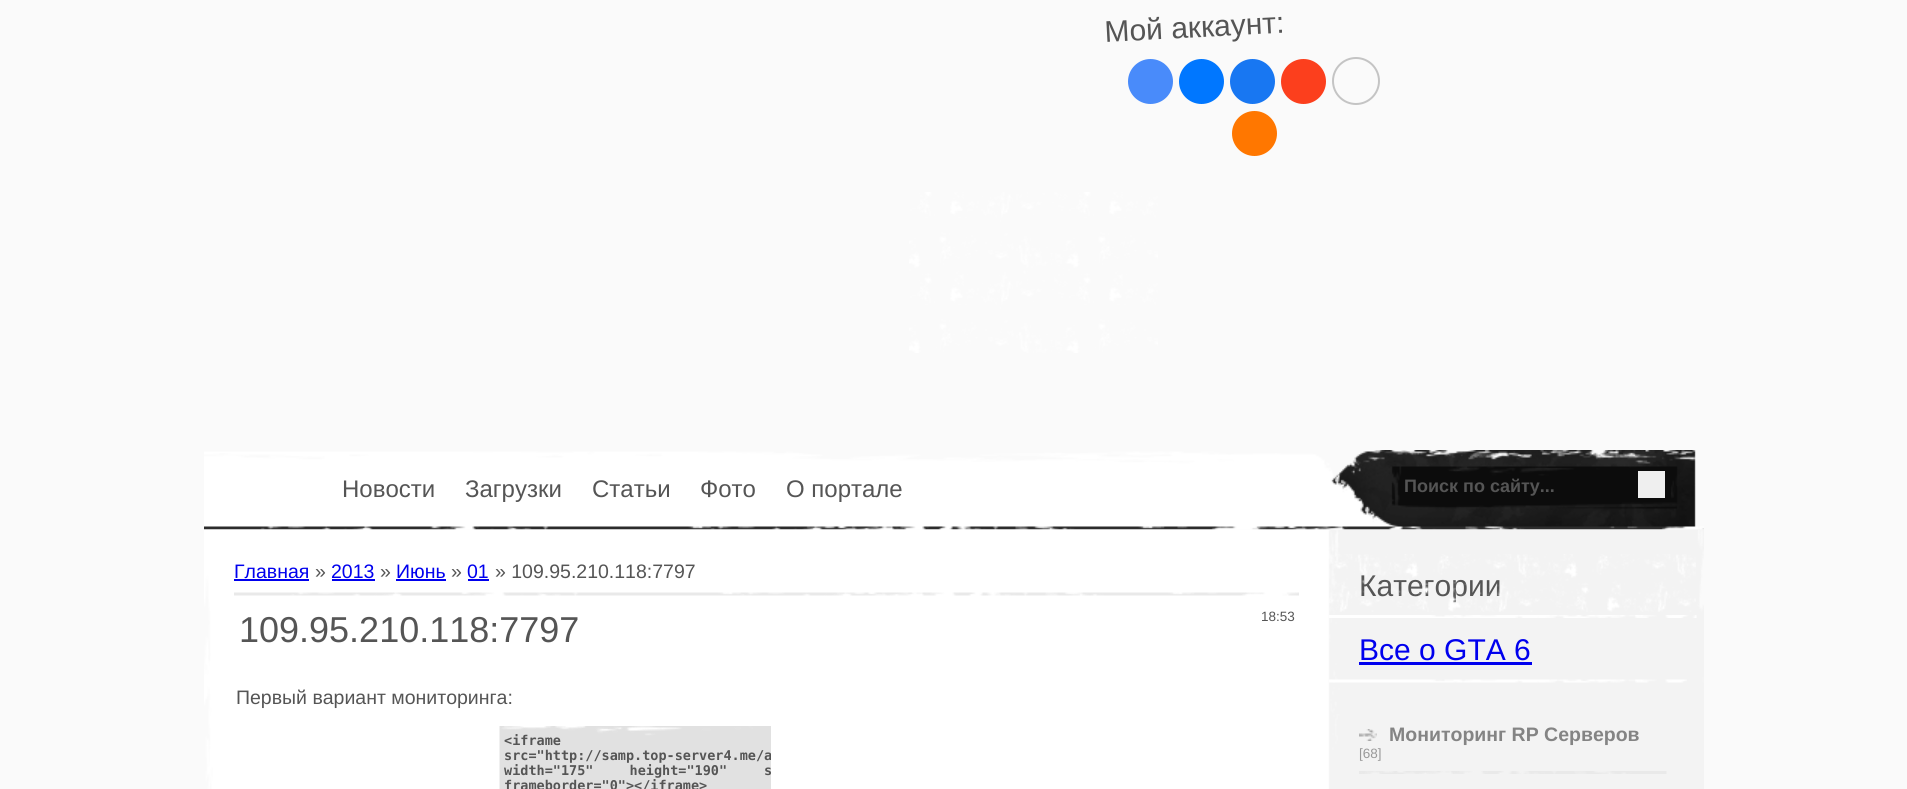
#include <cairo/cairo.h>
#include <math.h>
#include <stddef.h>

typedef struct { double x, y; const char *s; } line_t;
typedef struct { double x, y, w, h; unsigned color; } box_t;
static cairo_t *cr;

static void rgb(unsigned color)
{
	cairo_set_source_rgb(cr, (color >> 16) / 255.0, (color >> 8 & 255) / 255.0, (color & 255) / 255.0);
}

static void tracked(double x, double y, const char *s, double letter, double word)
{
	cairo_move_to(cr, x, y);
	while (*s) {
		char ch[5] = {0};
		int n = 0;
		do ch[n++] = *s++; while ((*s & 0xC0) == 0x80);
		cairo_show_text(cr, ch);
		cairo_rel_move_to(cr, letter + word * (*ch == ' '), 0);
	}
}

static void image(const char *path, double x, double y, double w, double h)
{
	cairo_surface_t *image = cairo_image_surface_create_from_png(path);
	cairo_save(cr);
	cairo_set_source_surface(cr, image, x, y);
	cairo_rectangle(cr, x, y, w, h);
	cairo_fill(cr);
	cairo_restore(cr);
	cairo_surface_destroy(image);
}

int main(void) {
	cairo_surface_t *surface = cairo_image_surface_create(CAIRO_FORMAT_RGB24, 1907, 789);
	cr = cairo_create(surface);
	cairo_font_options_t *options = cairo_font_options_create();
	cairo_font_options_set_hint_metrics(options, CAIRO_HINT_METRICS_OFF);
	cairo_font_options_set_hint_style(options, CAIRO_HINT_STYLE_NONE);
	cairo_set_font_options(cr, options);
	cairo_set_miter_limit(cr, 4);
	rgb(0xfafafa);
	cairo_paint(cr);
	rgb(0x498bfa);
	cairo_arc(cr, 1150.5, 81.5, 22.5, 0, 2 * M_PI);
	cairo_fill(cr);
	rgb(0x0077ff);
	cairo_arc(cr, 1201.5, 81.5, 22.5, 0, 2 * M_PI);
	cairo_fill(cr);
	rgb(0x1877f2);
	cairo_arc(cr, 1252.5, 81.5, 22.5, 0, 2 * M_PI);
	cairo_fill(cr);
	rgb(0xfc3f1d);
	cairo_arc(cr, 1303.5, 81.5, 22.5, 0, 2 * M_PI);
	cairo_fill(cr);
	cairo_arc(cr, 1356, 81, 23, 0, 2 * M_PI);
	rgb(0xc4c4c4);
	cairo_stroke(cr);
	rgb(0xff7700);
	cairo_arc(cr, 1254.5, 133.5, 22.5, 0, 2 * M_PI);
	cairo_fill(cr);
	image("img/1.png", 909, 192, 249, 161);
	image("img/2.png", 204, 450, 1500, 80);
	rgb(0xefefef);
	cairo_rectangle(cr, 1638, 471, 27, 27);
	cairo_fill(cr);
	image("img/3.png", 204, 529, 1500, 260);
	{
		static const box_t items[] = {
			{234, 579, 75, 2, 0x0000ee},
			{332, 579, 43, 2, 0x0000ee},
			{396, 579, 50, 2, 0x0000ee},
			{468, 579, 21, 2, 0x0000ee},
		};
		for (size_t i = 0; i < sizeof items / sizeof *items; i++) {
			rgb(items[i].color);
			cairo_rectangle(cr, items[i].x, items[i].y, items[i].w, items[i].h);
			cairo_fill(cr);
		}
	}
	image("img/4.png", 234, 592, 1065, 4);
	image("img/5.png", 499, 726, 272, 63);
	image("img/6.png", 1329, 615, 368, 3);
	image("img/8.png", 1329, 679, 358, 4);
	cairo_rectangle(cr, 1359, 662, 173, 3);
	cairo_fill(cr);
	image("img/9.png", 1359, 771, 308, 3);
	image("img/10.png", 1359, 729, 18, 12);
	cairo_select_font_face(cr, "Liberation Sans", CAIRO_FONT_SLANT_NORMAL, CAIRO_FONT_WEIGHT_NORMAL);
	cairo_set_font_size(cr, 30);
	rgb(0x555555);
	cairo_save(cr);
	cairo_translate(cr, 1105, 42);
	cairo_rotate(cr, -3 * M_PI / 180);
	cairo_move_to(cr, 0, 0);
	cairo_show_text(cr, "Мой аккаунт:");
	cairo_restore(cr);
	cairo_set_font_size(cr, 24);
	{
		static const line_t items[] = {
			{342, 497, "Новости"},
			{465, 497, "Загрузки"},
			{592, 497, "Статьи"},
			{700, 497, "Фото"},
			{786, 497, "О портале"},
		};
		for (size_t i = 0; i < sizeof items / sizeof *items; i++) {
			cairo_move_to(cr, items[i].x, items[i].y);
			cairo_show_text(cr, items[i].s);
		}
	}
	cairo_select_font_face(cr, "Liberation Sans", CAIRO_FONT_SLANT_NORMAL, CAIRO_FONT_WEIGHT_BOLD);
	cairo_set_font_size(cr, 18);
	cairo_move_to(cr, 1404, 492);
	cairo_show_text(cr, "Поиск по сайту...");
	cairo_select_font_face(cr, "Liberation Sans", CAIRO_FONT_SLANT_NORMAL, CAIRO_FONT_WEIGHT_NORMAL);
	cairo_set_font_size(cr, 19.5);
	rgb(0x0000ee);
	cairo_move_to(cr, 234, 578);
	cairo_show_text(cr, "Главная");
	rgb(0x555555);
	cairo_move_to(cr, 315, 578);
	cairo_show_text(cr, "»");
	rgb(0x0000ee);
	cairo_move_to(cr, 331, 578);
	cairo_show_text(cr, "2013");
	rgb(0x555555);
	cairo_move_to(cr, 380, 578);
	cairo_show_text(cr, "»");
	rgb(0x0000ee);
	cairo_move_to(cr, 396, 578);
	cairo_show_text(cr, "Июнь");
	rgb(0x555555);
	cairo_move_to(cr, 451, 578);
	cairo_show_text(cr, "»");
	rgb(0x0000ee);
	cairo_move_to(cr, 467, 578);
	cairo_show_text(cr, "01");
	rgb(0x555555);
	cairo_move_to(cr, 495, 578);
	cairo_show_text(cr, "» 109.95.210.118:7797");
	cairo_set_font_size(cr, 36);
	cairo_move_to(cr, 239, 642);
	cairo_show_text(cr, "109.95.210.118:7797");
	cairo_set_font_size(cr, 13.5);
	cairo_move_to(cr, 1261, 621);
	cairo_show_text(cr, "18:53");
	cairo_set_font_size(cr, 19.5);
	cairo_move_to(cr, 236, 704);
	cairo_show_text(cr, "Первый вариант мониторинга:");
	cairo_select_font_face(cr, "DejaVu Sans Mono", CAIRO_FONT_SLANT_NORMAL, CAIRO_FONT_WEIGHT_BOLD);
	cairo_set_font_size(cr, 13.5);
	cairo_move_to(cr, 504, 745);
	cairo_show_text(cr, "<iframe");
	cairo_save(cr);
	cairo_rectangle(cr, 500, 726, 271, 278);
	cairo_clip(cr);
	cairo_move_to(cr, 504, 760);
	cairo_show_text(cr, "src=\"http://samp.top-server4.me/a");
	cairo_restore(cr);
	tracked(504, 775, "width=\"175\" height=\"190\"", 0, 28);
	cairo_move_to(cr, 764, 775);
	cairo_show_text(cr, "s");
	cairo_move_to(cr, 504, 790);
	cairo_show_text(cr, "frameborder=\"0\"></iframe>");
	cairo_select_font_face(cr, "Liberation Sans", CAIRO_FONT_SLANT_NORMAL, CAIRO_FONT_WEIGHT_NORMAL);
	cairo_set_font_size(cr, 30);
	cairo_move_to(cr, 1359, 596);
	cairo_show_text(cr, "Категории");
	image("img/7.png", 1329, 554, 367, 58);
	rgb(0x0000ee);
	cairo_move_to(cr, 1359, 660);
	cairo_show_text(cr, "Все о GTA 6");
	cairo_select_font_face(cr, "Liberation Sans", CAIRO_FONT_SLANT_NORMAL, CAIRO_FONT_WEIGHT_BOLD);
	cairo_set_font_size(cr, 19.5);
	rgb(0x848484);
	cairo_move_to(cr, 1389, 741);
	cairo_show_text(cr, "Мониторинг RP Серверов");
	cairo_select_font_face(cr, "Liberation Sans", CAIRO_FONT_SLANT_NORMAL, CAIRO_FONT_WEIGHT_NORMAL);
	cairo_set_font_size(cr, 13.5);
	rgb(0x999999);
	cairo_move_to(cr, 1359, 758);
	cairo_show_text(cr, "[68]");
	cairo_surface_write_to_png(surface, "page.png");
	cairo_font_options_destroy(options);
	cairo_destroy(cr);
	cairo_surface_destroy(surface);
	return 0;
}
